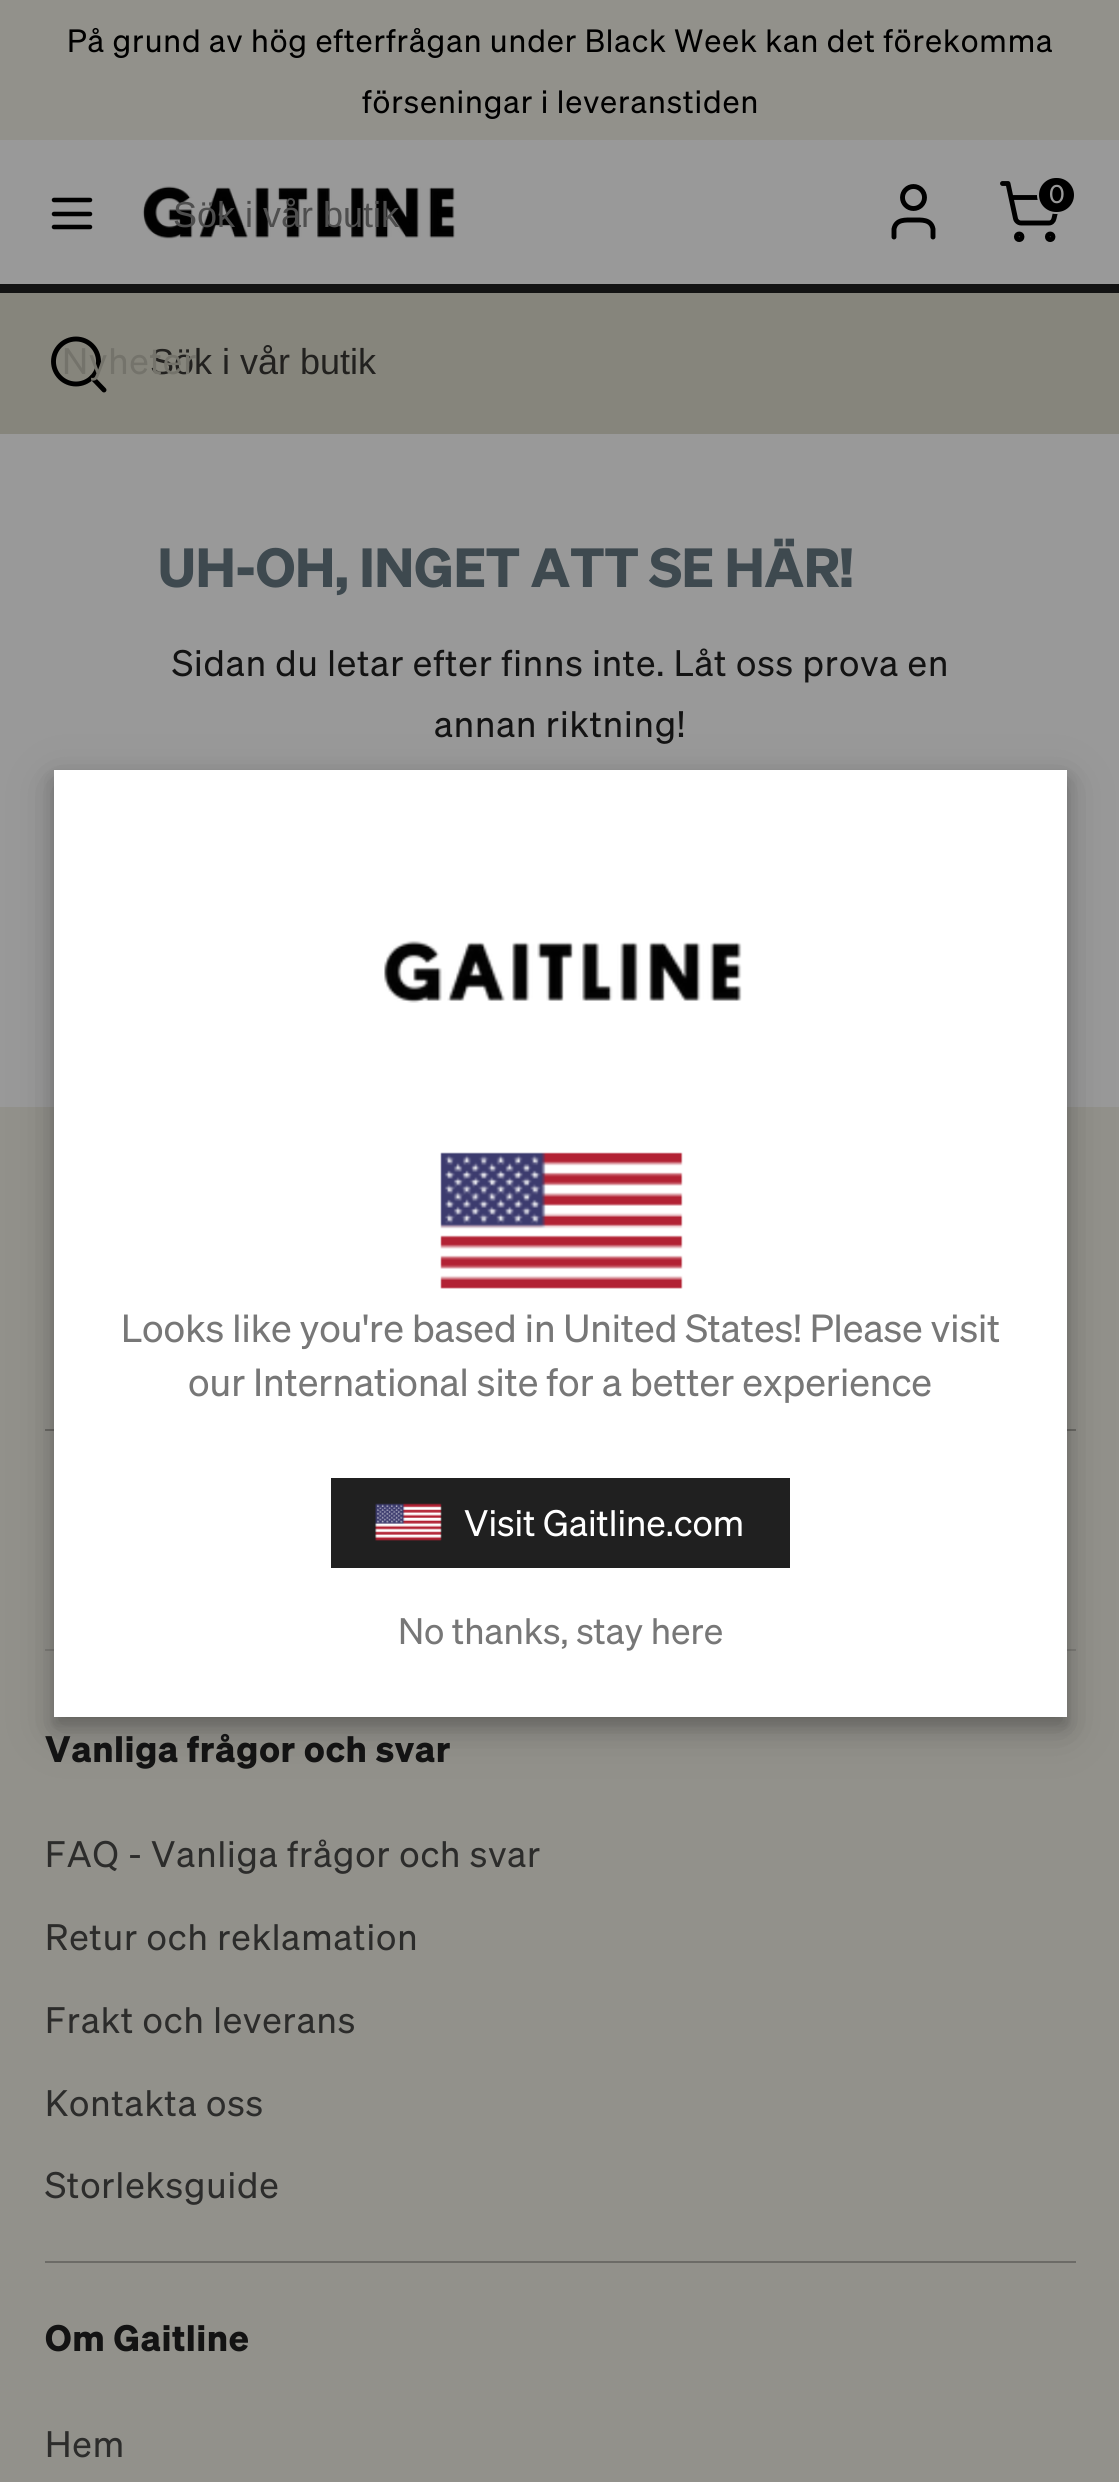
#include <cairo/cairo.h>
#include <math.h>
#include <stddef.h>

typedef struct { double x, y; const char *s; } line_t;
typedef struct { double x, y, w, h; unsigned color; } box_t;
static cairo_t *cr;

static void rgb(unsigned color)
{
	cairo_set_source_rgb(cr, (color >> 16) / 255.0, (color >> 8 & 255) / 255.0, (color & 255) / 255.0);
}

static void tracked(double x, double y, const char *s, double letter, double word)
{
	cairo_move_to(cr, x, y);
	while (*s) {
		char ch[5] = {0};
		int n = 0;
		do ch[n++] = *s++; while ((*s & 0xC0) == 0x80);
		cairo_show_text(cr, ch);
		cairo_rel_move_to(cr, letter + word * (*ch == ' '), 0);
	}
}

static void rrect(double x, double y, double w, double h, double r)
{
	cairo_new_sub_path(cr);
	cairo_arc(cr, x + w - r, y + h - r, r, 0, M_PI / 2);
	cairo_arc(cr, x + r, y + h - r, r, M_PI / 2, M_PI);
	cairo_arc(cr, x + r, y + r, r, M_PI, 1.5 * M_PI);
	cairo_arc(cr, x + w - r, y + r, r, 1.5 * M_PI, 2 * M_PI);
	cairo_close_path(cr);
}

static void soft_shadow(double x, double y, double w, double h, double r, double blur, double alpha)
{
	cairo_push_group_with_content(cr, CAIRO_CONTENT_ALPHA);
	cairo_set_operator(cr, CAIRO_OPERATOR_SOURCE);
	for (int i = 15; i >= -15 && fmin(w, h) + blur * i / 3 > 0; i -= 2) {
		double e = blur * i / 6;
		cairo_set_source_rgba(cr, 0, 0, 0, alpha * erfc((i - 1) / 8.5) / 2);
		rrect(x - e, y - e, w + 2 * e, h + 2 * e, fmax(0, fmin(r + e + blur * .6, fmin(w, h) / 2 + e)));
		cairo_fill(cr);
	}
	cairo_pattern_t *soft = cairo_pop_group(cr);
	cairo_mask(cr, soft);
	cairo_pattern_destroy(soft);
}

static void image(const char *path, double x, double y, double w, double h)
{
	cairo_surface_t *image = cairo_image_surface_create_from_png(path);
	cairo_save(cr);
	cairo_set_source_surface(cr, image, x, y);
	cairo_rectangle(cr, x, y, w, h);
	cairo_fill(cr);
	cairo_restore(cr);
	cairo_surface_destroy(image);
}

int main(void) {
	cairo_surface_t *surface = cairo_image_surface_create(CAIRO_FORMAT_RGB24, 1119, 2482);
	cr = cairo_create(surface);
	cairo_font_options_t *options = cairo_font_options_create();
	cairo_font_options_set_hint_metrics(options, CAIRO_HINT_METRICS_OFF);
	cairo_font_options_set_hint_style(options, CAIRO_HINT_STYLE_NONE);
	cairo_set_font_options(cr, options);
	cairo_set_miter_limit(cr, 4);
	rgb(0x999999);
	cairo_paint(cr);
	rgb(0x92918b);
	cairo_rectangle(cr, 0, 0, 1119, 140);
	cairo_fill(cr);
	cairo_new_path(cr);
	cairo_move_to(cr, 54, 214);
	cairo_line_to(cr, 90, 214);
	cairo_move_to(cr, 54, 200);
	cairo_line_to(cr, 90, 200);
	cairo_move_to(cr, 54, 227);
	cairo_line_to(cr, 90, 227);
	rgb(0x000000);
	cairo_set_line_width(cr, 4.5);
	cairo_set_line_cap(cr, CAIRO_LINE_CAP_ROUND);
	cairo_set_line_join(cr, CAIRO_LINE_JOIN_ROUND);
	cairo_stroke(cr);
	image("img/1.png", 142, 186, 313, 53);
	cairo_new_path(cr);
	cairo_move_to(cr, 933, 237);
	cairo_line_to(cr, 933, 229);
	cairo_curve_to(cr, 931, 219, 921.5, 220, 913.5, 220);
	cairo_curve_to(cr, 905.5, 220, 896, 219, 894, 229);
	cairo_line_to(cr, 894, 237);
	cairo_set_line_width(cr, 4.9);
	cairo_stroke(cr);
	cairo_arc(cr, 913.5, 197.5, 11, 0, 2 * M_PI);
	cairo_set_line_cap(cr, CAIRO_LINE_CAP_BUTT);
	cairo_set_line_join(cr, CAIRO_LINE_JOIN_MITER);
	cairo_stroke(cr);
	cairo_arc(cr, 1019.2, 236.8, 2.8, 0, 2 * M_PI);
	cairo_stroke(cr);
	cairo_arc(cr, 1050.2, 236.8, 2.8, 0, 2 * M_PI);
	cairo_stroke(cr);
	cairo_new_path(cr);
	cairo_move_to(cr, 1002.5, 183.5);
	cairo_line_to(cr, 1008, 183.5);
	cairo_line_to(cr, 1015.5, 218.5);
	cairo_curve_to(cr, 1016, 221, 1018.5, 223, 1021, 223);
	cairo_line_to(cr, 1049, 223);
	cairo_curve_to(cr, 1051.5, 223, 1053.5, 221, 1054, 218.5);
	cairo_line_to(cr, 1059, 197.5);
	cairo_line_to(cr, 1011, 197.5);
	cairo_set_line_cap(cr, CAIRO_LINE_CAP_ROUND);
	cairo_set_line_join(cr, CAIRO_LINE_JOIN_ROUND);
	cairo_stroke(cr);
	rrect(1038, 177, 37, 36, 18);
	cairo_fill_preserve(cr);
	rgb(0x999999);
	cairo_set_line_width(cr, 2);
	cairo_set_line_cap(cr, CAIRO_LINE_CAP_BUTT);
	cairo_set_line_join(cr, CAIRO_LINE_JOIN_MITER);
	cairo_stroke(cr);
	rgb(0x131313);
	cairo_rectangle(cr, 0, 284, 1119, 9);
	cairo_fill(cr);
	rgb(0x86857c);
	cairo_rectangle(cr, 0, 293, 1119, 141);
	cairo_fill(cr);
	cairo_arc(cr, 76, 361.5, 22.5, 0, 2 * M_PI);
	rgb(0x000000);
	cairo_set_line_width(cr, 4.9);
	cairo_stroke(cr);
	cairo_new_path(cr);
	cairo_move_to(cr, 104, 390);
	cairo_line_to(cr, 92, 377.5);
	cairo_set_line_cap(cr, CAIRO_LINE_CAP_ROUND);
	cairo_set_line_join(cr, CAIRO_LINE_JOIN_ROUND);
	cairo_stroke(cr);
	{
		static const box_t items[] = {
			{0, 1107, 1119, 1375, 0x92918b},
			{45, 1429, 1031, 2, 0x6c6b67},
			{45, 1649, 1031, 2, 0x7f7e79},
		};
		for (size_t i = 0; i < sizeof items / sizeof *items; i++) {
			rgb(items[i].color);
			cairo_rectangle(cr, items[i].x, items[i].y, items[i].w, items[i].h);
			cairo_fill(cr);
		}
	}
	rgb(0x000000);
	soft_shadow(54, 783, 1013, 947, 0, 22.5, 0.19);
	soft_shadow(54, 779, 1013, 947, 0, 9, 0.2);
	rgb(0xffffff);
	cairo_rectangle(cr, 54, 770, 1013, 947);
	cairo_fill(cr);
	image("img/2.png", 384, 940, 358, 63);
	image("img/3.png", 440, 1152, 243, 137);
	rgb(0x202020);
	cairo_rectangle(cr, 331, 1478, 459, 90);
	cairo_fill(cr);
	image("img/4.png", 375, 1503, 67, 38);
	rgb(0x6c6b67);
	cairo_rectangle(cr, 45, 2261, 1031, 2);
	cairo_fill(cr);
	cairo_select_font_face(cr, "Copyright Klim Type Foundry", CAIRO_FONT_SLANT_NORMAL, CAIRO_FONT_WEIGHT_NORMAL);
	cairo_set_font_size(cr, 31.5);
	rgb(0x000000);
	tracked(67, 52, "På grund av hög efterfrågan under Black Week kan det förekomma", 0.9, 0);
	tracked(362, 113, "förseningar i leveranstiden", 0.9, 0);
	cairo_set_font_size(cr, 25);
	rgb(0x999999);
	cairo_move_to(cr, 1049, 203);
	cairo_show_text(cr, "0");
	cairo_select_font_face(cr, "Liberation Sans", CAIRO_FONT_SLANT_NORMAL, CAIRO_FONT_WEIGHT_NORMAL);
	cairo_set_font_size(cr, 36);
	rgb(0x4e4e4e);
	cairo_move_to(cr, 173, 227);
	cairo_show_text(cr, "Sök i vår butik");
	rgb(0x22211f);
	cairo_move_to(cr, 150, 374);
	cairo_show_text(cr, "Sök i vår butik");
	cairo_select_font_face(cr, "Copyright Klim Type Foundry", CAIRO_FONT_SLANT_NORMAL, CAIRO_FONT_WEIGHT_NORMAL);
	rgb(0x74736b);
	tracked(62, 374, "Nyheter", 0.9, 0);
	cairo_select_font_face(cr, "Copyright Klim Type Foundry", CAIRO_FONT_SLANT_NORMAL, CAIRO_FONT_WEIGHT_BOLD);
	cairo_set_font_size(cr, 53.8);
	rgb(0x3e494f);
	cairo_move_to(cr, 158, 587);
	cairo_show_text(cr, "UH-OH, INGET ATT SE HÄR!");
	cairo_select_font_face(cr, "Copyright Klim Type Foundry", CAIRO_FONT_SLANT_NORMAL, CAIRO_FONT_WEIGHT_NORMAL);
	cairo_set_font_size(cr, 36);
	rgb(0x131313);
	tracked(172, 676, "Sidan du letar efter finns inte. Låt oss prova en", 0.9, 0);
	tracked(434, 737, "annan riktning!", 0.9, 0);
	cairo_set_font_size(cr, 38.25);
	rgb(0x777777);
	cairo_move_to(cr, 121, 1342);
	cairo_show_text(cr, "Looks like you're based in United States! Please visit");
	cairo_move_to(cr, 188, 1396);
	cairo_show_text(cr, "our International site for a better experience");
	cairo_set_font_size(cr, 36);
	rgb(0xffffff);
	cairo_move_to(cr, 464, 1536);
	cairo_show_text(cr, "Visit Gaitline.com");
	rgb(0x777777);
	cairo_move_to(cr, 398, 1644);
	cairo_show_text(cr, "No thanks, stay here");
	cairo_select_font_face(cr, "Copyright Klim Type Foundry", CAIRO_FONT_SLANT_NORMAL, CAIRO_FONT_WEIGHT_BOLD);
	rgb(0x131313);
	tracked(45, 1762, "Vanliga frågor och svar", 0.9, 0);
	cairo_select_font_face(cr, "Copyright Klim Type Foundry", CAIRO_FONT_SLANT_NORMAL, CAIRO_FONT_WEIGHT_NORMAL);
	rgb(0x2c2c2b);
	{
		static const line_t items[] = {
			{45, 1867, "FAQ - Vanliga frågor och svar"},
			{45, 1950, "Retur och reklamation"},
			{45, 2033, "Frakt och leverans"},
			{45, 2116, "Kontakta oss"},
			{45, 2198, "Storleksguide"},
		};
		for (size_t i = 0; i < sizeof items / sizeof *items; i++) {
			tracked(items[i].x, items[i].y, items[i].s, 0.9, 0);
		}
	}
	cairo_select_font_face(cr, "Copyright Klim Type Foundry", CAIRO_FONT_SLANT_NORMAL, CAIRO_FONT_WEIGHT_BOLD);
	rgb(0x131313);
	tracked(45, 2351, "Om Gaitline", 0.9, 0);
	cairo_select_font_face(cr, "Copyright Klim Type Foundry", CAIRO_FONT_SLANT_NORMAL, CAIRO_FONT_WEIGHT_NORMAL);
	rgb(0x2c2c2b);
	tracked(45, 2457, "Hem", 0.9, 0);
	cairo_surface_write_to_png(surface, "page.png");
	cairo_font_options_destroy(options);
	cairo_destroy(cr);
	cairo_surface_destroy(surface);
	return 0;
}
